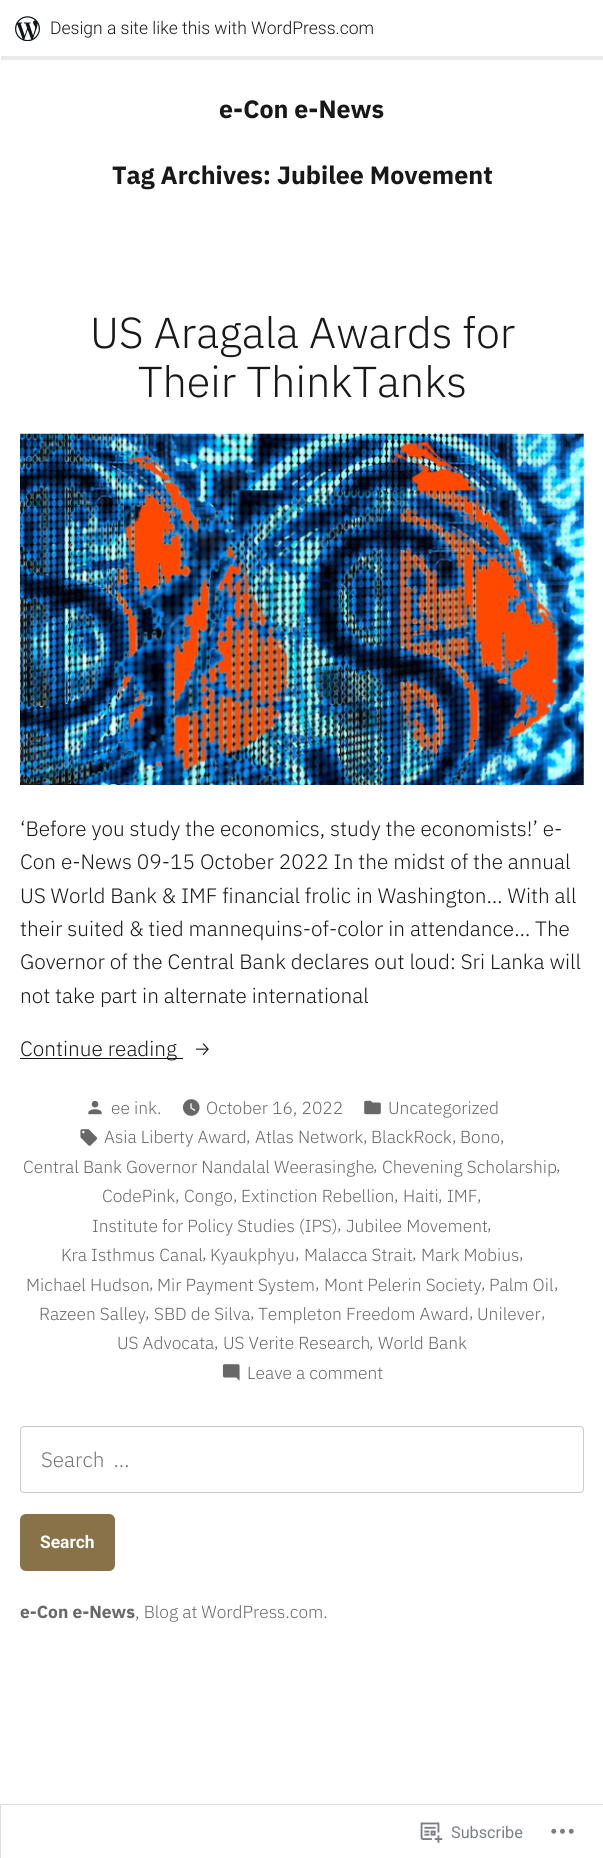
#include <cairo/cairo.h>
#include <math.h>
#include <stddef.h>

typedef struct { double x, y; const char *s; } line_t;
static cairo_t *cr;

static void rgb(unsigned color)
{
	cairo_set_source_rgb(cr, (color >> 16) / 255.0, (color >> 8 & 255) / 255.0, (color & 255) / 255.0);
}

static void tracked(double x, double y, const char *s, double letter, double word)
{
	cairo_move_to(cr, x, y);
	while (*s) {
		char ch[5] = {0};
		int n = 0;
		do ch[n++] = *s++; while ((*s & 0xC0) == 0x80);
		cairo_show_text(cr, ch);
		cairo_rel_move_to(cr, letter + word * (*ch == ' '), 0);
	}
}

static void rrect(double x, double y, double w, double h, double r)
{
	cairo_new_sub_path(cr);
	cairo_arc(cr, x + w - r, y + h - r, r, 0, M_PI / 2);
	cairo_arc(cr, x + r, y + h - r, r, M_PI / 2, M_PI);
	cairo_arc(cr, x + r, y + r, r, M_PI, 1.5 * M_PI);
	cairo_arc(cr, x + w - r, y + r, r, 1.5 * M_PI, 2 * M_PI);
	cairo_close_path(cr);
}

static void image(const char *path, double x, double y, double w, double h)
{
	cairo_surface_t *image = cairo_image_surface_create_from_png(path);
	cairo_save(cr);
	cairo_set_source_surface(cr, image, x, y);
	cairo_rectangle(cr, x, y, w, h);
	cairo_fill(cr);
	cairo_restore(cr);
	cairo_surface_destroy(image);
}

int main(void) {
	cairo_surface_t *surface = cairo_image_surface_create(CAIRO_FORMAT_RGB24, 603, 1858);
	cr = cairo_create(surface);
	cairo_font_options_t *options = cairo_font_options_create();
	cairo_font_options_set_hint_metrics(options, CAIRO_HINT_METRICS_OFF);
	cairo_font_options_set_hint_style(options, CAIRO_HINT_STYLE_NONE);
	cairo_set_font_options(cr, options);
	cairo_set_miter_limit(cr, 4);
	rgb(0xffffff);
	cairo_paint(cr);
	cairo_set_source_rgba(cr, 0, 0, 0, 0.08);
	cairo_new_path(cr);
	cairo_move_to(cr, 1, 56);
	cairo_line_to(cr, 1, 60);
	cairo_line_to(cr, 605, 60);
	cairo_line_to(cr, 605, 4);
	cairo_line_to(cr, 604, 4);
	cairo_line_to(cr, 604, 56);
	cairo_close_path(cr);
	cairo_fill(cr);
	image("img/1.png", 15, 16, 25, 25);
	image("img/2.png", 20, 433, 564, 352);
	rgb(0x181818);
	cairo_rectangle(cr, 20, 1058, 163, 1);
	cairo_fill(cr);
	image("img/3.png", 88, 1100, 14, 15);
	image("img/4.png", 182, 1099, 18, 17);
	image("img/5.png", 364, 1100, 17, 15);
	image("img/6.png", 80, 1129, 18, 17);
	image("img/7.png", 222, 1364, 18, 17);
	rrect(20.5, 1426.5, 563, 66, 3.5);
	rgb(0xcccccc);
	cairo_set_line_width(cr, 1);
	cairo_stroke(cr);
	rgb(0x897248);
	rrect(20, 1514, 95, 57, 6);
	cairo_fill(cr);
	cairo_rectangle(cr, 0.5, 1804.5, 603, 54);
	rgb(0xdddddf);
	cairo_stroke(cr);
	image("img/8.png", 420, 1822, 23, 21);
	image("img/9.png", 551, 1828, 23, 6);
	cairo_select_font_face(cr, "Roboto Light", CAIRO_FONT_SLANT_NORMAL, CAIRO_FONT_WEIGHT_NORMAL);
	cairo_set_font_size(cr, 17.5);
	rgb(0x181818);
	cairo_move_to(cr, 50, 34);
	cairo_show_text(cr, "Design a site like this with WordPress.com");
	cairo_select_font_face(cr, "IBM Plex Sans", CAIRO_FONT_SLANT_NORMAL, CAIRO_FONT_WEIGHT_BOLD);
	cairo_set_font_size(cr, 25);
	cairo_move_to(cr, 219, 118);
	cairo_show_text(cr, "e-Con e-News");
	cairo_move_to(cr, 112, 184);
	cairo_show_text(cr, "Tag Archives: Jubilee Movement");
	cairo_select_font_face(cr, "IBM Plex Sans Light", CAIRO_FONT_SLANT_NORMAL, CAIRO_FONT_WEIGHT_NORMAL);
	cairo_set_font_size(cr, 43.25);
	cairo_move_to(cr, 90, 348);
	cairo_show_text(cr, "US Aragala Awards for");
	cairo_move_to(cr, 138, 397);
	cairo_show_text(cr, "Their ThinkTanks");
	cairo_set_font_size(cr, 20.8);
	{
		static const line_t items[] = {
			{20, 836, "‘Before you study the economics, study the economists!’ e-"},
			{20, 869, "Con e-News 09-15 October 2022 In the midst of the annual"},
			{20, 903, "US World Bank & IMF financial frolic in Washington… With all"},
			{20, 936, "their suited & tied mannequins-of-color in attendance… The"},
			{20, 969, "Governor of the Central Bank declares out loud: Sri Lanka will"},
			{20, 1003, "not take part in alternate international"},
			{20, 1056, "Continue reading"},
		};
		for (size_t i = 0; i < sizeof items / sizeof *items; i++) {
			cairo_move_to(cr, items[i].x, items[i].y);
			cairo_show_text(cr, items[i].s);
		}
	}
	cairo_select_font_face(cr, "Fira Sans Light", CAIRO_FONT_SLANT_NORMAL, CAIRO_FONT_WEIGHT_NORMAL);
	cairo_move_to(cr, 193, 1056);
	cairo_show_text(cr, "→");
	cairo_select_font_face(cr, "IBM Plex Sans Light", CAIRO_FONT_SLANT_NORMAL, CAIRO_FONT_WEIGHT_NORMAL);
	cairo_set_font_size(cr, 17.4);
	rgb(0x686868);
	{
		static const line_t items[] = {
			{111, 1114, "ee ink."},
			{206, 1114, "October 16, 2022"},
			{388, 1114, "Uncategorized"},
			{104, 1143, "Asia Liberty Award"},
			{246, 1142, ","},
			{255, 1143, "Atlas Network"},
			{363, 1142, ","},
			{371, 1143, "BlackRock"},
			{452, 1142, ","},
			{460, 1143, "Bono"},
			{500, 1142, ","},
			{23, 1173, "Central Bank Governor Nandalal Weerasinghe"},
			{373, 1171, ","},
			{382, 1173, "Chevening Scholarship"},
			{556, 1171, ","},
			{102, 1202, "CodePink"},
			{175, 1201, ","},
			{184, 1202, "Congo"},
			{233, 1201, ","},
			{241, 1202, "Extinction Rebellion"},
			{394, 1201, ","},
			{403, 1202, "Haiti"},
			{438, 1201, ","},
			{447, 1202, "IMF"},
			{477, 1201, ","},
			{92, 1232, "Institute for Policy Studies (IPS)"},
			{337, 1230, ","},
			{346, 1232, "Jubilee Movement"},
			{487, 1230, ","},
			{61, 1261, "Kra Isthmus Canal"},
			{202, 1259, ","},
			{210, 1261, "Kyaukphyu"},
			{295, 1259, ","},
			{304, 1261, "Malacca Strait"},
			{412, 1259, ","},
			{421, 1261, "Mark Mobius"},
			{519, 1259, ","},
			{26, 1291, "Michael Hudson"},
			{149, 1289, ","},
			{157, 1291, "Mir Payment System"},
			{315, 1289, ","},
			{324, 1291, "Mont Pelerin Society"},
			{481, 1289, ","},
			{489, 1291, "Palm Oil"},
			{554, 1289, ","},
			{39, 1320, "Razeen Salley"},
			{145, 1318, ","},
			{154, 1320, "SBD de Silva"},
			{250, 1318, ","},
			{258, 1320, "Templeton Freedom Award"},
			{469, 1318, ","},
			{477, 1320, "Unilever"},
			{541, 1318, ","},
			{117, 1349, "US Advocata"},
			{214, 1348, ","},
			{223, 1349, "US Verite Research"},
			{369, 1348, ","},
			{378, 1349, "World Bank"},
			{247, 1379, "Leave a comment"},
		};
		for (size_t i = 0; i < sizeof items / sizeof *items; i++) {
			cairo_move_to(cr, items[i].x, items[i].y);
			cairo_show_text(cr, items[i].s);
		}
	}
	cairo_set_font_size(cr, 20.8);
	rgb(0x757575);
	tracked(41, 1467, "Search …", 0, 4);
	cairo_select_font_face(cr, "Roboto", CAIRO_FONT_SLANT_NORMAL, CAIRO_FONT_WEIGHT_BOLD);
	cairo_set_font_size(cr, 17.4);
	rgb(0xffffff);
	cairo_move_to(cr, 40, 1548);
	cairo_show_text(cr, "Search");
	cairo_select_font_face(cr, "IBM Plex Sans", CAIRO_FONT_SLANT_NORMAL, CAIRO_FONT_WEIGHT_BOLD);
	rgb(0x686868);
	cairo_move_to(cr, 20, 1618);
	cairo_show_text(cr, "e-Con e-News");
	cairo_select_font_face(cr, "IBM Plex Sans Light", CAIRO_FONT_SLANT_NORMAL, CAIRO_FONT_WEIGHT_NORMAL);
	cairo_move_to(cr, 135, 1618);
	cairo_show_text(cr, ", Blog at WordPress.com.");
	cairo_select_font_face(cr, "Roboto", CAIRO_FONT_SLANT_NORMAL, CAIRO_FONT_WEIGHT_NORMAL);
	cairo_set_font_size(cr, 16.25);
	rgb(0x7b7f85);
	cairo_move_to(cr, 451, 1838);
	cairo_show_text(cr, "Subscribe");
	cairo_surface_write_to_png(surface, "page.png");
	cairo_font_options_destroy(options);
	cairo_destroy(cr);
	cairo_surface_destroy(surface);
	return 0;
}
